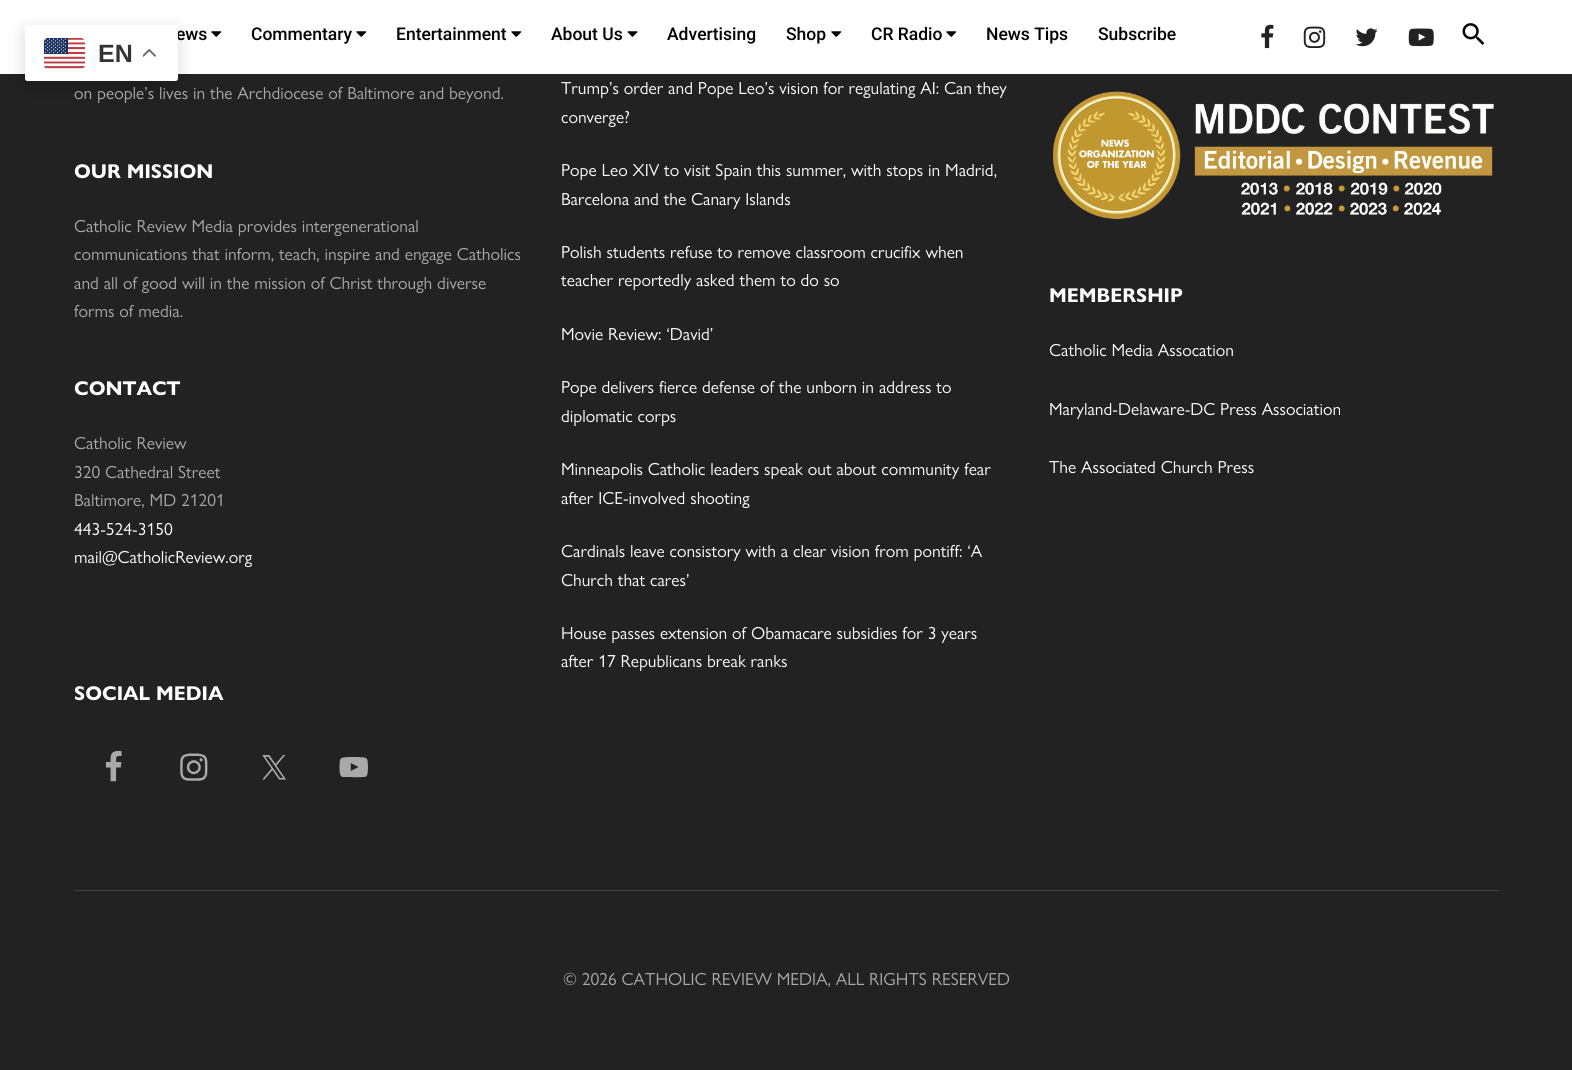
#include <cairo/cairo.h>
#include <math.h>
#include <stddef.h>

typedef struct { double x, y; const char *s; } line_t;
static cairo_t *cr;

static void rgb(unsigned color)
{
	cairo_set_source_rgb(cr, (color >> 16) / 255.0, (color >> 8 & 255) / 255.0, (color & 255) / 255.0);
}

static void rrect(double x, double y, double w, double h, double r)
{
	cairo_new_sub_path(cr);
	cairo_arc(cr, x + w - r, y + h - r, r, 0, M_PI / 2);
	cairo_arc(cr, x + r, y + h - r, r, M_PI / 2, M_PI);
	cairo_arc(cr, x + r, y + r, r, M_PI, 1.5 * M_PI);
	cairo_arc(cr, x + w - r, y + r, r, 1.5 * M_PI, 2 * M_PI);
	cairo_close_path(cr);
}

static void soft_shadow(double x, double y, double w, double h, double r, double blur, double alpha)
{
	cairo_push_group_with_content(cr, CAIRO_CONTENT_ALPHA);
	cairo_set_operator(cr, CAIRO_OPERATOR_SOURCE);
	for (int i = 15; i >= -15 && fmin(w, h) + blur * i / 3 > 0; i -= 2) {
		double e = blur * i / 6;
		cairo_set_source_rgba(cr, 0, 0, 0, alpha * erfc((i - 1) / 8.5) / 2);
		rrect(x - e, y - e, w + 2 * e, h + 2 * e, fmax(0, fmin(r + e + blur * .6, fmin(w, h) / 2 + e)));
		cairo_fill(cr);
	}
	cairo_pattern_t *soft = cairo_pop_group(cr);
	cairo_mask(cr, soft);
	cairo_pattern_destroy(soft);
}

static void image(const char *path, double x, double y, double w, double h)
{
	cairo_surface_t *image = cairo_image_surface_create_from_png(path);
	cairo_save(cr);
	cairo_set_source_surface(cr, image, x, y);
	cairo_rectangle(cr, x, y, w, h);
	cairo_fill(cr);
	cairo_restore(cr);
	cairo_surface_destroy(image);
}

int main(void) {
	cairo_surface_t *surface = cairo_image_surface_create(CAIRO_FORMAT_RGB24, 1572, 1070);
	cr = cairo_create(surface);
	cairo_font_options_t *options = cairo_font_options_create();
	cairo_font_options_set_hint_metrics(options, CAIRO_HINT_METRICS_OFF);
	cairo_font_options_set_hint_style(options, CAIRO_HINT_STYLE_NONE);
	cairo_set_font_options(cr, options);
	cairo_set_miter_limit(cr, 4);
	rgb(0x222222);
	cairo_paint(cr);
	rgb(0xffffff);
	cairo_rectangle(cr, 0, 0, 1572, 74);
	cairo_fill(cr);
	image("img/1.png", 211, 31, 11, 6);
	image("img/1.png", 356, 31, 11, 6);
	image("img/1.png", 511, 31, 11, 6);
	image("img/2.png", 627, 31, 11, 6);
	image("img/1.png", 831, 31, 11, 6);
	image("img/1.png", 946, 31, 11, 6);
	image("img/3.png", 1261, 24, 13, 25);
	image("img/4.png", 1303, 26, 23, 22);
	image("img/5.png", 1355, 28, 23, 19);
	image("img/6.png", 1408, 28, 26, 19);
	image("img/7.png", 1462, 23, 23, 22);
	image("img/8.png", 105, 751, 17, 31);
	image("img/9.png", 180, 753, 28, 28);
	image("img/10.png", 262, 755, 24, 25);
	image("img/11.png", 339, 757, 29, 21);
	image("img/12.png", 1053, 91, 441, 129);
	rgb(0x444444);
	cairo_rectangle(cr, 74, 890, 1425, 1);
	cairo_fill(cr);
	rgb(0x000000);
	soft_shadow(25, 31, 153, 57, 2.5, 9.5, 0.15);
	cairo_select_font_face(cr, "Roboto Medium", CAIRO_FONT_SLANT_NORMAL, CAIRO_FONT_WEIGHT_NORMAL);
	cairo_set_font_size(cr, 17.5);
	rgb(0x000000);
	{
		static const line_t items[] = {
			{176, 40, "ews"},
			{251, 40, "Commentary"},
			{396, 40, "Entertainment"},
			{551, 40, "About Us"},
			{667, 40, "Advertising"},
			{786, 40, "Shop"},
			{871, 40, "CR Radio"},
			{986, 40, "News Tips"},
			{1098, 40, "Subscribe"},
		};
		for (size_t i = 0; i < sizeof items / sizeof *items; i++) {
			cairo_move_to(cr, items[i].x, items[i].y);
			cairo_show_text(cr, items[i].s);
		}
	}
	cairo_select_font_face(cr, "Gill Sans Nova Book", CAIRO_FONT_SLANT_NORMAL, CAIRO_FONT_WEIGHT_NORMAL);
	rgb(0xaaaaaa);
	cairo_move_to(cr, 74, 99);
	cairo_show_text(cr, "on people’s lives in the Archdiocese of Baltimore and beyond.");
	cairo_select_font_face(cr, "Gill Sans Nova Book", CAIRO_FONT_SLANT_NORMAL, CAIRO_FONT_WEIGHT_BOLD);
	cairo_set_font_size(cr, 20);
	rgb(0xffffff);
	cairo_move_to(cr, 74, 178);
	cairo_show_text(cr, "OUR MISSION");
	cairo_select_font_face(cr, "Gill Sans Nova Book", CAIRO_FONT_SLANT_NORMAL, CAIRO_FONT_WEIGHT_NORMAL);
	cairo_set_font_size(cr, 17.5);
	rgb(0xaaaaaa);
	{
		static const line_t items[] = {
			{74, 232, "Catholic Review Media provides intergenerational"},
			{74, 260, "communications that inform, teach, inspire and engage Catholics"},
			{74, 289, "and all of good will in the mission of Christ through diverse"},
			{74, 317, "forms of media."},
		};
		for (size_t i = 0; i < sizeof items / sizeof *items; i++) {
			cairo_move_to(cr, items[i].x, items[i].y);
			cairo_show_text(cr, items[i].s);
		}
	}
	cairo_select_font_face(cr, "Gill Sans Nova Book", CAIRO_FONT_SLANT_NORMAL, CAIRO_FONT_WEIGHT_BOLD);
	cairo_set_font_size(cr, 20);
	rgb(0xffffff);
	cairo_move_to(cr, 74, 395);
	cairo_show_text(cr, "CONTACT");
	cairo_select_font_face(cr, "Gill Sans Nova Book", CAIRO_FONT_SLANT_NORMAL, CAIRO_FONT_WEIGHT_NORMAL);
	cairo_set_font_size(cr, 17.5);
	rgb(0xaaaaaa);
	{
		static const line_t items[] = {
			{74, 449, "Catholic Review"},
			{74, 478, "320 Cathedral Street"},
			{74, 506, "Baltimore, MD 21201"},
		};
		for (size_t i = 0; i < sizeof items / sizeof *items; i++) {
			cairo_move_to(cr, items[i].x, items[i].y);
			cairo_show_text(cr, items[i].s);
		}
	}
	rgb(0xffffff);
	cairo_move_to(cr, 74, 535);
	cairo_show_text(cr, "443-524-3150");
	cairo_move_to(cr, 74, 563);
	cairo_show_text(cr, "mail@CatholicReview.org");
	cairo_select_font_face(cr, "Gill Sans Nova Book", CAIRO_FONT_SLANT_NORMAL, CAIRO_FONT_WEIGHT_BOLD);
	cairo_set_font_size(cr, 20);
	cairo_move_to(cr, 74, 700);
	cairo_show_text(cr, "SOCIAL MEDIA");
	cairo_select_font_face(cr, "Gill Sans Nova Book", CAIRO_FONT_SLANT_NORMAL, CAIRO_FONT_WEIGHT_NORMAL);
	cairo_set_font_size(cr, 17.5);
	{
		static const line_t items[] = {
			{561, 94, "Trump’s order and Pope Leo’s vision for regulating AI: Can they"},
			{561, 123, "converge?"},
			{561, 176, "Pope Leo XIV to visit Spain this summer, with stops in Madrid,"},
			{561, 205, "Barcelona and the Canary Islands"},
			{561, 258, "Polish students refuse to remove classroom crucifix when"},
			{561, 286, "teacher reportedly asked them to do so"},
			{561, 340, "Movie Review: ‘David’"},
			{561, 393, "Pope delivers fierce defense of the unborn in address to"},
			{561, 422, "diplomatic corps"},
			{561, 475, "Minneapolis Catholic leaders speak out about community fear"},
			{561, 504, "after ICE-involved shooting"},
			{561, 557, "Cardinals leave consistory with a clear vision from pontiff: ‘A"},
			{561, 586, "Church that cares’"},
			{561, 639, "House passes extension of Obamacare subsidies for 3 years"},
			{561, 667, "after 17 Republicans break ranks"},
		};
		for (size_t i = 0; i < sizeof items / sizeof *items; i++) {
			cairo_move_to(cr, items[i].x, items[i].y);
			cairo_show_text(cr, items[i].s);
		}
	}
	cairo_select_font_face(cr, "Gill Sans Nova Book", CAIRO_FONT_SLANT_NORMAL, CAIRO_FONT_WEIGHT_BOLD);
	cairo_set_font_size(cr, 20);
	cairo_move_to(cr, 1049, 302);
	cairo_show_text(cr, "MEMBERSHIP");
	cairo_select_font_face(cr, "Gill Sans Nova Book", CAIRO_FONT_SLANT_NORMAL, CAIRO_FONT_WEIGHT_NORMAL);
	cairo_set_font_size(cr, 17.5);
	{
		static const line_t items[] = {
			{1049, 356, "Catholic Media Assocation"},
			{1049, 415, "Maryland-Delaware-DC Press Association"},
			{1049, 473, "The Associated Church Press"},
		};
		for (size_t i = 0; i < sizeof items / sizeof *items; i++) {
			cairo_move_to(cr, items[i].x, items[i].y);
			cairo_show_text(cr, items[i].s);
		}
	}
	rgb(0xaaaaaa);
	cairo_move_to(cr, 563, 985);
	cairo_show_text(cr, "© 2026 CATHOLIC REVIEW MEDIA, ALL RIGHTS RESERVED");
	rgb(0xffffff);
	rrect(25, 25, 153, 56, 2.5);
	cairo_fill(cr);
	image("img/13.png", 44, 38, 41, 31);
	cairo_select_font_face(cr, "Liberation Sans", CAIRO_FONT_SLANT_NORMAL, CAIRO_FONT_WEIGHT_BOLD);
	cairo_set_font_size(cr, 25);
	rgb(0x333333);
	cairo_move_to(cr, 98, 62);
	cairo_show_text(cr, "EN");
	image("img/14.png", 143, 48, 13, 9);
	cairo_surface_write_to_png(surface, "page.png");
	cairo_font_options_destroy(options);
	cairo_destroy(cr);
	cairo_surface_destroy(surface);
	return 0;
}
